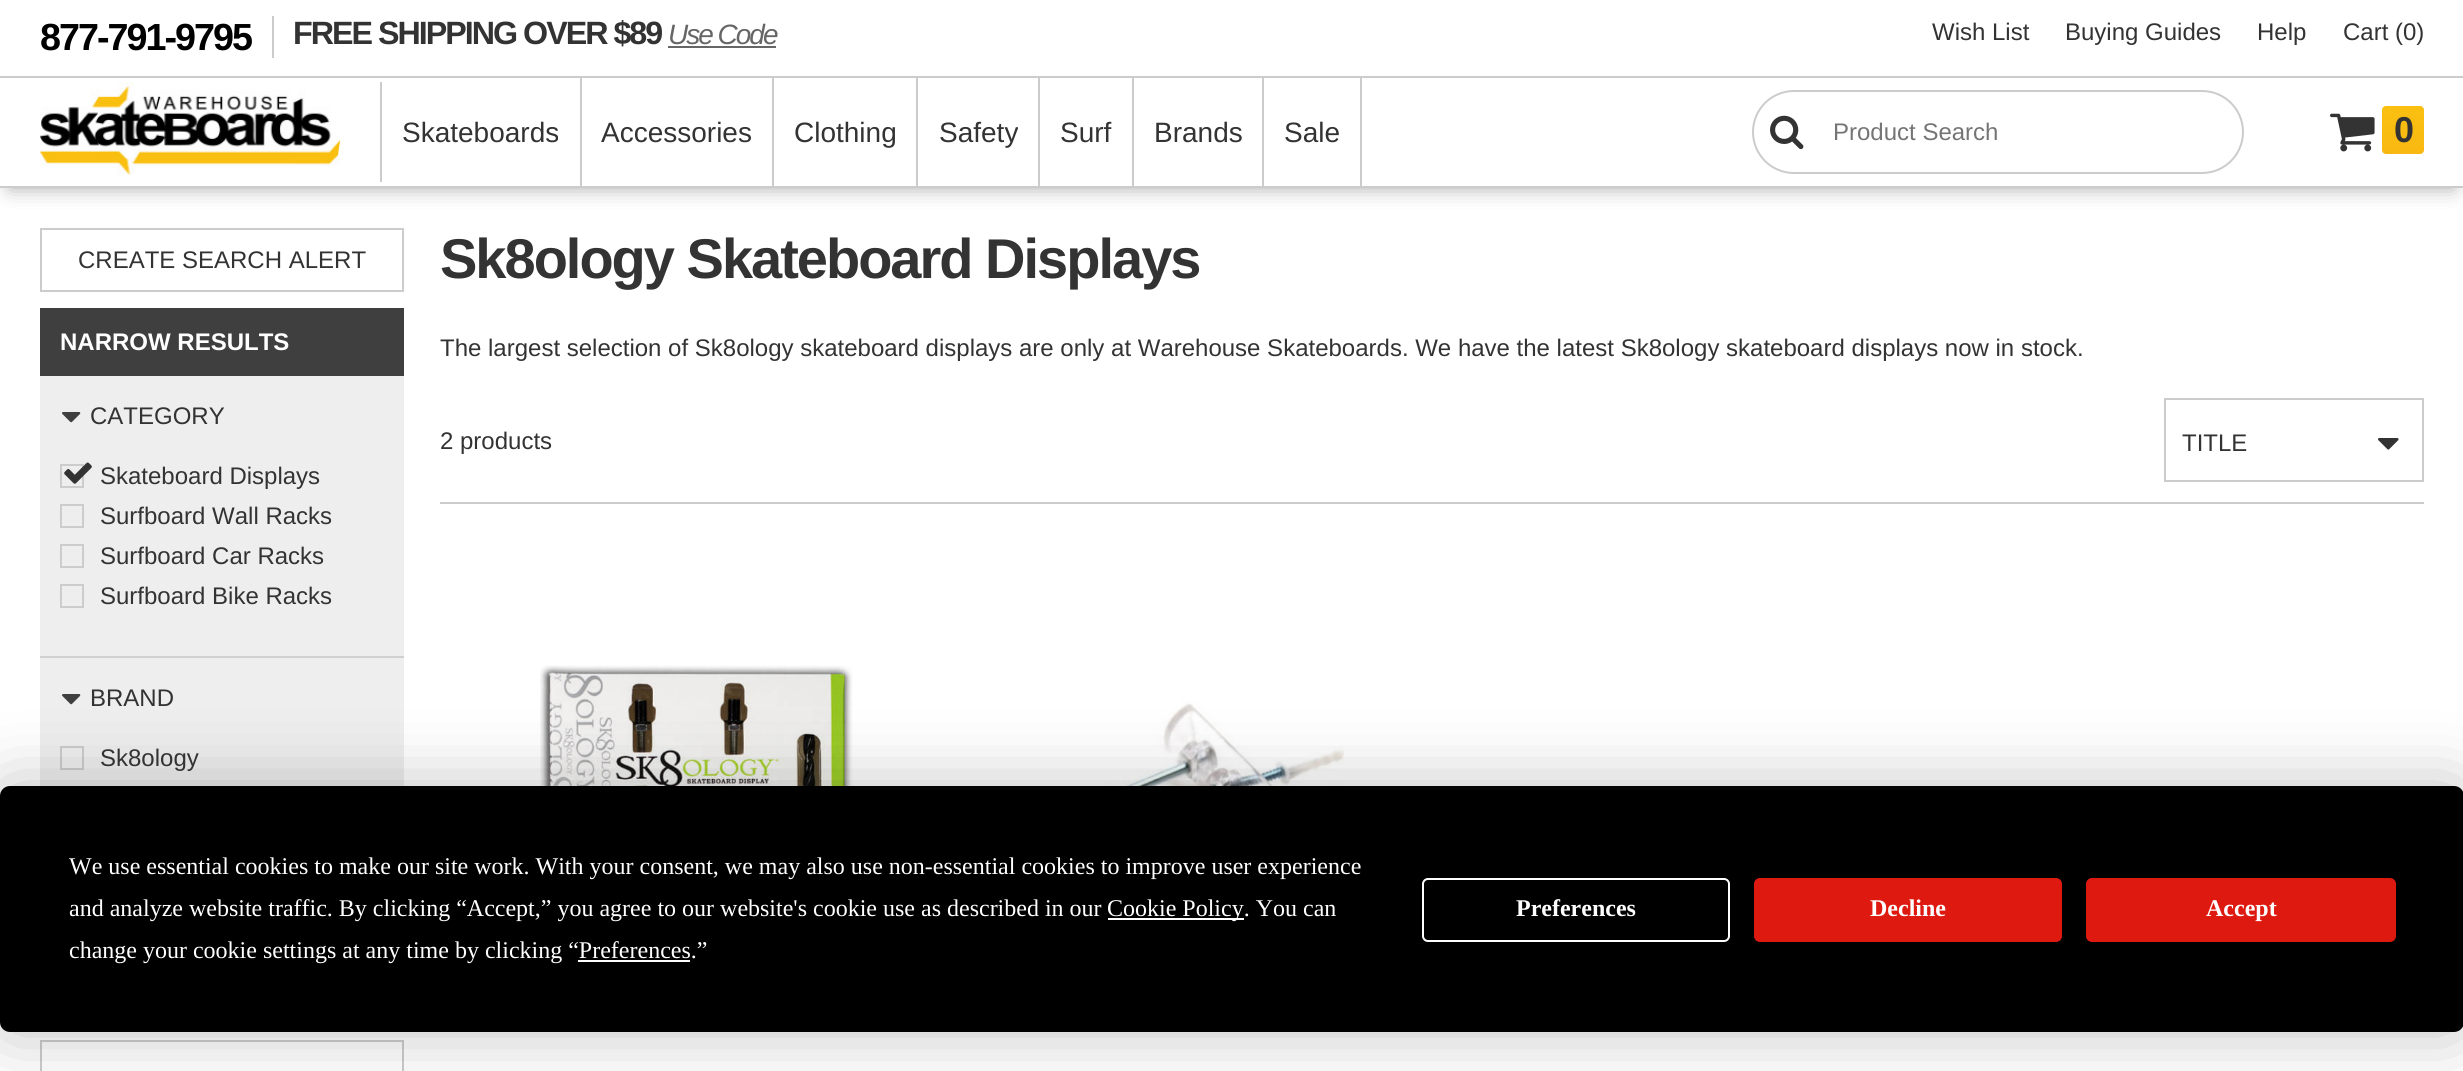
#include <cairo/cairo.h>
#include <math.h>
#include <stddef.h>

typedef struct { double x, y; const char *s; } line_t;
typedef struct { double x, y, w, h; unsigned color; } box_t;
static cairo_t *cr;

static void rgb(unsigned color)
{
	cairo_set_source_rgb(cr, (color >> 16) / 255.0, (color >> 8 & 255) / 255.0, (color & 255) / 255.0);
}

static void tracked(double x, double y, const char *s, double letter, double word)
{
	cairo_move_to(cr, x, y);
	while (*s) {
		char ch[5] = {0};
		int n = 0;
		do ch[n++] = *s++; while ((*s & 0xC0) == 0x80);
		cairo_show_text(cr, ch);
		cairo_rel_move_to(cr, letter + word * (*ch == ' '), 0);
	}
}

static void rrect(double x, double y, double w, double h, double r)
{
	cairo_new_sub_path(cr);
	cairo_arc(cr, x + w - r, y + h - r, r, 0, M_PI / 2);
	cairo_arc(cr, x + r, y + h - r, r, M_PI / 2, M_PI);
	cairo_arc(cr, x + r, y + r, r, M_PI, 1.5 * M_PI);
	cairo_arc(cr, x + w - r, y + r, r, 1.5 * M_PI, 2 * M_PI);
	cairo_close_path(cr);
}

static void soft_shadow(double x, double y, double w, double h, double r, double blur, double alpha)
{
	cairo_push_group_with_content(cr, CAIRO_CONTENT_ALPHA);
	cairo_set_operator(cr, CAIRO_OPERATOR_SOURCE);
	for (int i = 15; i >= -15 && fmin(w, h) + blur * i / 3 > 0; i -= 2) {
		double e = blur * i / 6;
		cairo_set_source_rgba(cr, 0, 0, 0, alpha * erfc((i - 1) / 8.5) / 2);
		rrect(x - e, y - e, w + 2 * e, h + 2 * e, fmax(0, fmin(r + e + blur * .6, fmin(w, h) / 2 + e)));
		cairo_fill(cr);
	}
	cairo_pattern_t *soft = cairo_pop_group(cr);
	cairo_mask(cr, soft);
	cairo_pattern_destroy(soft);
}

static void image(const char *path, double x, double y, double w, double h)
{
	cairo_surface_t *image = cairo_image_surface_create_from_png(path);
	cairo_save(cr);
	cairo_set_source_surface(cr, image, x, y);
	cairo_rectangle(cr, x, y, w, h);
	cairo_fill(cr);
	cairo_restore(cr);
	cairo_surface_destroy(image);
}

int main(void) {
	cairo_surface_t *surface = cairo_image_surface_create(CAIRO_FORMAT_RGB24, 2463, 1071);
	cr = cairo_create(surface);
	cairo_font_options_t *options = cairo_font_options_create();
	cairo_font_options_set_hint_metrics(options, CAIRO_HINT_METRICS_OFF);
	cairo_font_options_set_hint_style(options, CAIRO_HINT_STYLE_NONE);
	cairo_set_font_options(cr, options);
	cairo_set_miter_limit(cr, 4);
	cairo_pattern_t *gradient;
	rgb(0xffffff);
	cairo_paint(cr);
	cairo_save(cr);
	cairo_rectangle(cr, 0, 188, 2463, 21);
	cairo_clip(cr);
	rgb(0xaaaaaa);
	soft_shadow(10, 20, 2444, 168, 0, 10, 1);
	cairo_restore(cr);
	{
		static const box_t items[] = {
			{0, 186, 2463, 2, 0xcccccc},
			{0, 76, 2463, 2, 0xcccccc},
			{272, 16, 2, 42, 0xcccccc},
			{668, 46, 108, 2, 0x666666},
			{380, 82, 2, 100, 0xcccccc},
		};
		for (size_t i = 0; i < sizeof items / sizeof *items; i++) {
			rgb(items[i].color);
			cairo_rectangle(cr, items[i].x, items[i].y, items[i].w, items[i].h);
			cairo_fill(cr);
		}
	}
	image("img/1.png", 40, 82, 300, 93);
	{
		static const box_t items[] = {
			{580, 78, 2, 108, 0xcccccc},
			{772, 78, 2, 108, 0xcccccc},
			{916, 78, 2, 108, 0xcccccc},
			{1038, 78, 2, 108, 0xcccccc},
			{1132, 78, 2, 108, 0xcccccc},
			{1262, 78, 2, 108, 0xcccccc},
			{1360, 78, 2, 108, 0xcccccc},
		};
		for (size_t i = 0; i < sizeof items / sizeof *items; i++) {
			rgb(items[i].color);
			cairo_rectangle(cr, items[i].x, items[i].y, items[i].w, items[i].h);
			cairo_fill(cr);
		}
	}
	rrect(1753, 91, 490, 82, 41);
	cairo_stroke(cr);
	image("img/2.png", 1770, 115, 34, 35);
	image("img/3.png", 2330, 113, 45, 39);
	gradient = cairo_pattern_create_linear(2403, 106, 2403, 154);
	cairo_pattern_add_color_stop_rgba(gradient, 0, 0.98, 0.753, 0.067, 1);
	cairo_pattern_add_color_stop_rgba(gradient, 1, 0.976, 0.722, 0.067, 1);
	cairo_set_source(cr, gradient);
	cairo_pattern_destroy(gradient);
	rrect(2382, 106, 42, 48, 4);
	cairo_fill(cr);
	cairo_rectangle(cr, 41, 229, 362, 62);
	rgb(0xcccccc);
	cairo_stroke(cr);
	{
		static const box_t items[] = {
			{40, 376, 364, 410, 0xeeeeee},
			{40, 308, 364, 68, 0x403f3f},
			{40, 656, 364, 2, 0xd0d0d0},
		};
		for (size_t i = 0; i < sizeof items / sizeof *items; i++) {
			rgb(items[i].color);
			cairo_rectangle(cr, items[i].x, items[i].y, items[i].w, items[i].h);
			cairo_fill(cr);
		}
	}
	image("img/4.png", 62, 412, 19, 11);
	cairo_rectangle(cr, 61, 465, 22, 22);
	rgb(0xcccccc);
	cairo_stroke(cr);
	image("img/5.png", 64, 462, 28, 22);
	cairo_rectangle(cr, 61, 505, 22, 22);
	cairo_stroke(cr);
	cairo_rectangle(cr, 61, 545, 22, 22);
	cairo_stroke(cr);
	cairo_rectangle(cr, 61, 585, 22, 22);
	cairo_stroke(cr);
	image("img/4.png", 62, 694, 19, 11);
	cairo_rectangle(cr, 61, 747, 22, 22);
	cairo_stroke(cr);
	cairo_rectangle(cr, 41, 1041, 362, 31);
	cairo_stroke(cr);
	cairo_rectangle(cr, 440, 502, 1984, 2);
	cairo_fill(cr);
	cairo_rectangle(cr, 2165, 399, 258, 82);
	cairo_stroke(cr);
	image("img/6.png", 2378, 438, 21, 12);
	image("img/7.png", 540, 665, 313, 121);
	image("img/8.png", 990, 701, 354, 85);
	rgb(0x000000);
	soft_shadow(0, 786, 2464, 246, 10, 35, 0.25);
	rgb(0x000000);
	rrect(0, 786, 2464, 246, 10);
	cairo_fill(cr);
	rgb(0xffffff);
	cairo_rectangle(cr, 1108, 918, 136, 2);
	cairo_fill(cr);
	cairo_rectangle(cr, 578, 960, 112, 2);
	cairo_fill(cr);
	rrect(1423, 879, 306, 62, 5);
	cairo_stroke(cr);
	rgb(0xde1910);
	rrect(1755, 879, 306, 62, 5);
	cairo_fill_preserve(cr);
	cairo_stroke(cr);
	rrect(2087, 879, 308, 62, 5);
	cairo_fill_preserve(cr);
	cairo_stroke(cr);
	cairo_select_font_face(cr, "Liberation Sans", CAIRO_FONT_SLANT_NORMAL, CAIRO_FONT_WEIGHT_BOLD);
	cairo_set_font_size(cr, 37.75);
	rgb(0x000000);
	tracked(40, 50, "877-791-9795", -2, 0);
	cairo_set_font_size(cr, 32.25);
	rgb(0x333333);
	tracked(293, 44, "FREE SHIPPING OVER $89", -2, 0);
	cairo_select_font_face(cr, "Liberation Sans", CAIRO_FONT_SLANT_ITALIC, CAIRO_FONT_WEIGHT_NORMAL);
	cairo_set_font_size(cr, 28);
	rgb(0x666666);
	tracked(668, 44, "Use Code", -2, 0);
	cairo_select_font_face(cr, "Liberation Sans", CAIRO_FONT_SLANT_NORMAL, CAIRO_FONT_WEIGHT_NORMAL);
	cairo_set_font_size(cr, 24);
	rgb(0x333333);
	{
		static const line_t items[] = {
			{1932, 40, "Wish List"},
			{2065, 40, "Buying Guides"},
			{2257, 40, "Help"},
			{2343, 40, "Cart (0)"},
		};
		for (size_t i = 0; i < sizeof items / sizeof *items; i++) {
			cairo_move_to(cr, items[i].x, items[i].y);
			cairo_show_text(cr, items[i].s);
		}
	}
	cairo_set_font_size(cr, 28);
	{
		static const line_t items[] = {
			{402, 142, "Skateboards"},
			{601, 142, "Accessories"},
			{794, 142, "Clothing"},
			{939, 142, "Safety"},
			{1060, 142, "Surf"},
			{1154, 142, "Brands"},
			{1284, 142, "Sale"},
		};
		for (size_t i = 0; i < sizeof items / sizeof *items; i++) {
			cairo_move_to(cr, items[i].x, items[i].y);
			cairo_show_text(cr, items[i].s);
		}
	}
	cairo_set_font_size(cr, 24);
	rgb(0x757575);
	cairo_move_to(cr, 1833, 140);
	cairo_show_text(cr, "Product Search");
	cairo_select_font_face(cr, "Liberation Sans", CAIRO_FONT_SLANT_NORMAL, CAIRO_FONT_WEIGHT_BOLD);
	cairo_set_font_size(cr, 36);
	rgb(0x333333);
	tracked(2394, 142, "0", -2, 0);
	cairo_select_font_face(cr, "Liberation Sans", CAIRO_FONT_SLANT_NORMAL, CAIRO_FONT_WEIGHT_NORMAL);
	cairo_set_font_size(cr, 24);
	cairo_move_to(cr, 78, 268);
	cairo_show_text(cr, "CREATE SEARCH ALERT");
	cairo_select_font_face(cr, "Liberation Sans", CAIRO_FONT_SLANT_NORMAL, CAIRO_FONT_WEIGHT_BOLD);
	rgb(0xffffff);
	cairo_move_to(cr, 60, 350);
	cairo_show_text(cr, "NARROW RESULTS");
	cairo_select_font_face(cr, "Liberation Sans", CAIRO_FONT_SLANT_NORMAL, CAIRO_FONT_WEIGHT_NORMAL);
	rgb(0x333333);
	{
		static const line_t items[] = {
			{90, 424, "CATEGORY"},
			{100, 484, "Skateboard Displays"},
			{100, 524, "Surfboard Wall Racks"},
			{100, 564, "Surfboard Car Racks"},
			{100, 604, "Surfboard Bike Racks"},
			{90, 706, "BRAND"},
			{100, 766, "Sk8ology"},
		};
		for (size_t i = 0; i < sizeof items / sizeof *items; i++) {
			cairo_move_to(cr, items[i].x, items[i].y);
			cairo_show_text(cr, items[i].s);
		}
	}
	cairo_select_font_face(cr, "Liberation Sans", CAIRO_FONT_SLANT_NORMAL, CAIRO_FONT_WEIGHT_BOLD);
	cairo_set_font_size(cr, 56);
	tracked(440, 278, "Sk8ology Skateboard Displays", -2, 0);
	cairo_select_font_face(cr, "Liberation Sans", CAIRO_FONT_SLANT_NORMAL, CAIRO_FONT_WEIGHT_NORMAL);
	cairo_set_font_size(cr, 24);
	{
		static const line_t items[] = {
			{440, 356, "The largest selection of Sk8ology skateboard displays are only at Warehouse Skateboards. We have the latest Sk8ology skateboard displays now in stock."},
			{440, 449, "2 products"},
			{2182, 451, "TITLE"},
		};
		for (size_t i = 0; i < sizeof items / sizeof *items; i++) {
			cairo_move_to(cr, items[i].x, items[i].y);
			cairo_show_text(cr, items[i].s);
		}
	}
	cairo_select_font_face(cr, "Liberation Serif", CAIRO_FONT_SLANT_NORMAL, CAIRO_FONT_WEIGHT_NORMAL);
	rgb(0xffffff);
	{
		static const line_t items[] = {
			{69, 874, "We use essential cookies to make our site work. With your consent, we may also use non-essential cookies to improve user experience"},
			{69, 916, "and analyze website traffic. By clicking “Accept,” you agree to our website's cookie use as described in our"},
			{1107, 916, "Cookie Policy. You can"},
			{69, 958, "change your cookie settings at any time by clicking “Preferences.”"},
		};
		for (size_t i = 0; i < sizeof items / sizeof *items; i++) {
			cairo_move_to(cr, items[i].x, items[i].y);
			cairo_show_text(cr, items[i].s);
		}
	}
	cairo_select_font_face(cr, "Liberation Serif", CAIRO_FONT_SLANT_NORMAL, CAIRO_FONT_WEIGHT_BOLD);
	{
		static const line_t items[] = {
			{1516, 916, "Preferences"},
			{1870, 916, "Decline"},
			{2206, 916, "Accept"},
		};
		for (size_t i = 0; i < sizeof items / sizeof *items; i++) {
			cairo_move_to(cr, items[i].x, items[i].y);
			cairo_show_text(cr, items[i].s);
		}
	}
	cairo_surface_write_to_png(surface, "page.png");
	cairo_font_options_destroy(options);
	cairo_destroy(cr);
	cairo_surface_destroy(surface);
	return 0;
}
